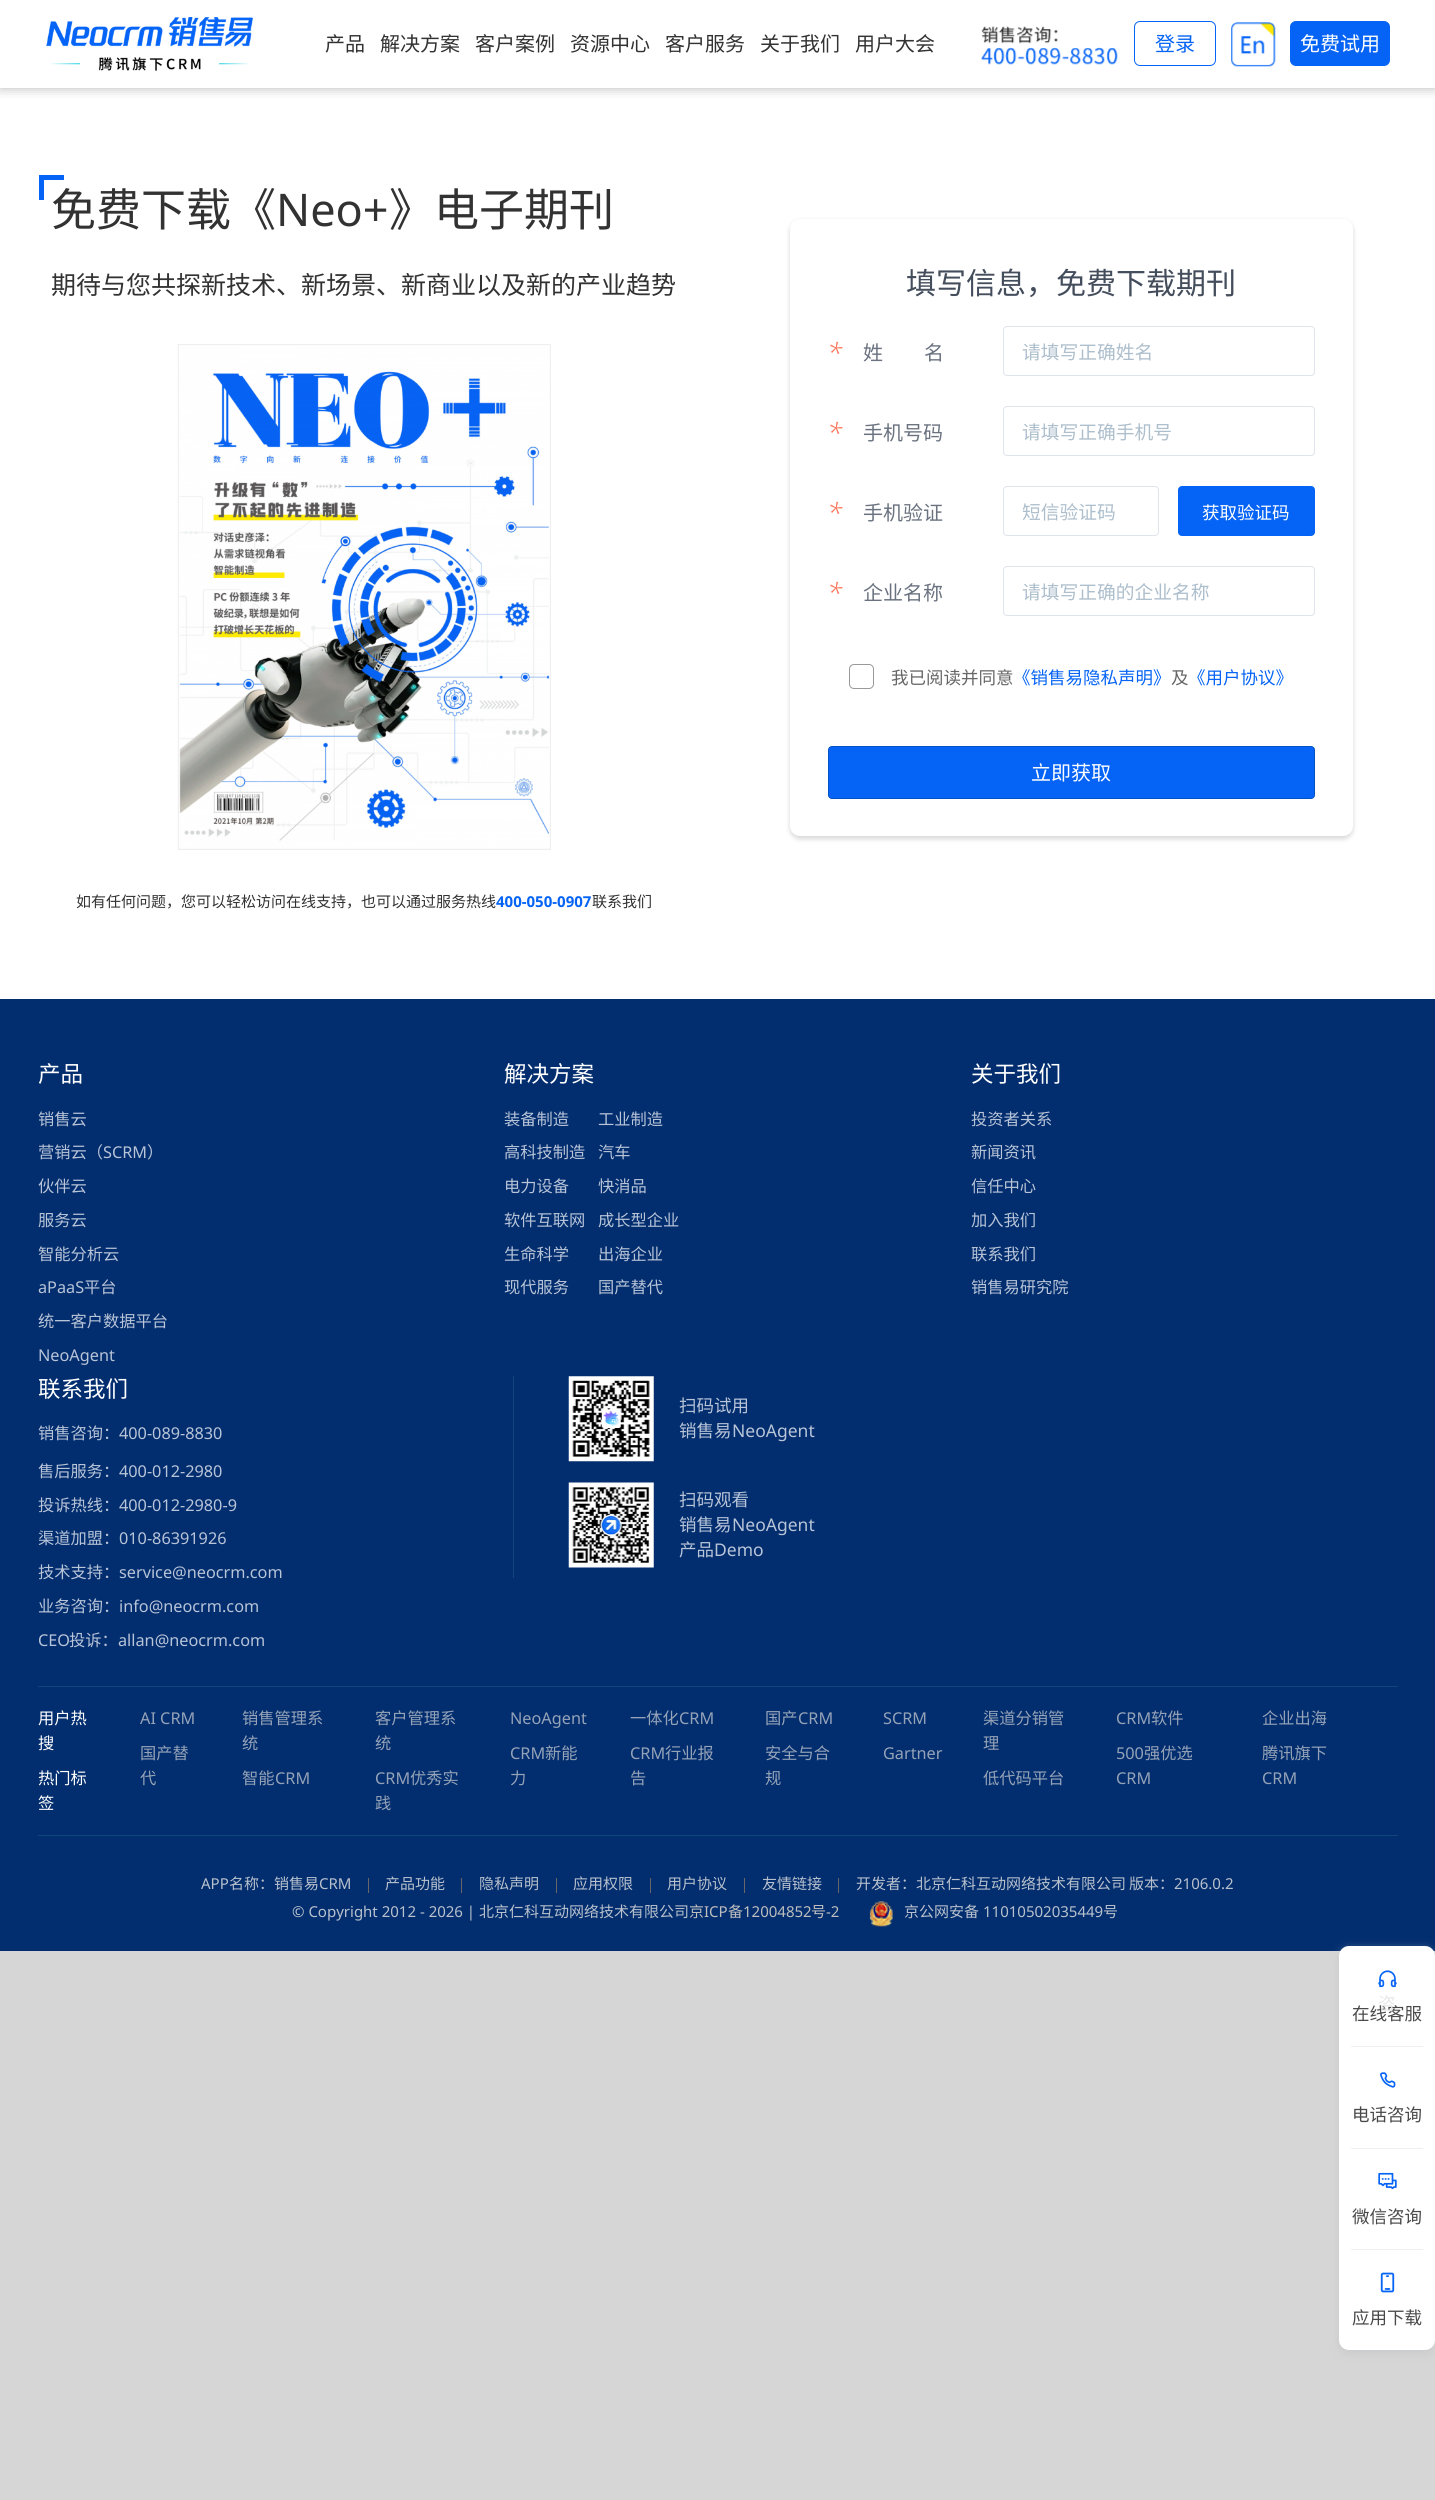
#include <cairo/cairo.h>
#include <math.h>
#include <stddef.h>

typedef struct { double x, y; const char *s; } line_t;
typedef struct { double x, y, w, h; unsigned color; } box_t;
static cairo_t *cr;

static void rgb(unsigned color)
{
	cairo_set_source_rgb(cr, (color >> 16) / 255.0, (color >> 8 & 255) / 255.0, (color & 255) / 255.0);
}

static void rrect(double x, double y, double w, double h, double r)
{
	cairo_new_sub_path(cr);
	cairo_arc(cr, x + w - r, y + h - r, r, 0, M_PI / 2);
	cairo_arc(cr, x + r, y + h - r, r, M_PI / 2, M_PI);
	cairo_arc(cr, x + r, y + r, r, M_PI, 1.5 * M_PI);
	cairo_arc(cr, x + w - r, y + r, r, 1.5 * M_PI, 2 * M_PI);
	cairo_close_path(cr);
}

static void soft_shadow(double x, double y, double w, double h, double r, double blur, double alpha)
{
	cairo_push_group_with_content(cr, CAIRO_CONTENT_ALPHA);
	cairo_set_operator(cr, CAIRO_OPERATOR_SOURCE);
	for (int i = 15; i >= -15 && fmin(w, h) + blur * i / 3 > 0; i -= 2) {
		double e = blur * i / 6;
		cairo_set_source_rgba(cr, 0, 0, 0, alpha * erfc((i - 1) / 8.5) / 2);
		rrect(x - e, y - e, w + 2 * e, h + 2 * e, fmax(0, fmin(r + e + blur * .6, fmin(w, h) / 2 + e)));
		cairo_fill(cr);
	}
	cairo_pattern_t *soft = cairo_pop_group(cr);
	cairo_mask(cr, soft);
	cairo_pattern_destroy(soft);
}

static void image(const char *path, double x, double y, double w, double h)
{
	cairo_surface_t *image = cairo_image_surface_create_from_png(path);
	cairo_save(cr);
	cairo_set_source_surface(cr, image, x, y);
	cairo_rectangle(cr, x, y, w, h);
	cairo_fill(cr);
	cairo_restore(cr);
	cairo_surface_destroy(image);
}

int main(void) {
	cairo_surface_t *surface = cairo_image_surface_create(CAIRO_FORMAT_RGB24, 1435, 2500);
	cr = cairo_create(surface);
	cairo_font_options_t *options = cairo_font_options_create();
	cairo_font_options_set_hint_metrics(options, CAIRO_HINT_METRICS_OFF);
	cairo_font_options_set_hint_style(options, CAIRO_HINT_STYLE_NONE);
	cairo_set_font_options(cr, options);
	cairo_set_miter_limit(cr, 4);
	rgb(0xd7d6d6);
	cairo_paint(cr);
	rgb(0xffffff);
	cairo_rectangle(cr, 0, 88, 1435, 911);
	cairo_fill(cr);
	rgb(0x000000);
	soft_shadow(0, 0, 1435, 88, 0, 6, 0.15);
	soft_shadow(0, 0, 1435, 88, 0, 6, 0.15);
	rgb(0xffffff);
	cairo_rectangle(cr, 0, 0, 1435, 88);
	cairo_fill(cr);
	image("img/1.png", 46, 17, 207, 54);
	image("img/2.png", 981, 26, 137, 39);
	rrect(1134.5, 21.5, 81, 44, 5.5);
	rgb(0x0564f5);
	cairo_set_line_width(cr, 1);
	cairo_stroke(cr);
	image("img/3.png", 1231, 22, 45, 45);
	rrect(1290, 21, 100, 45, 6);
	cairo_fill(cr);
	cairo_rectangle(cr, 39, 175, 25, 5);
	cairo_fill(cr);
	cairo_rectangle(cr, 39, 175, 5, 25);
	cairo_fill(cr);
	image("img/4.png", 177, 344, 374, 506);
	rgb(0x000000);
	soft_shadow(790, 221, 563, 618, 10, 2.5, 0.16);
	rgb(0xffffff);
	rrect(790, 219, 563, 617, 10);
	cairo_fill(cr);
	rrect(1003.5, 326.5, 311, 49, 3.5);
	rgb(0xdfe3eb);
	cairo_stroke(cr);
	rrect(1003.5, 406.5, 311, 49, 3.5);
	cairo_stroke(cr);
	rrect(1003.5, 486.5, 155, 49, 3.5);
	cairo_stroke(cr);
	rgb(0x0564f5);
	rrect(1178, 486, 137, 50, 4);
	cairo_fill(cr);
	rrect(1003.5, 566.5, 311, 49, 3.5);
	rgb(0xdfe3eb);
	cairo_stroke(cr);
	rrect(849.5, 664.5, 24, 24, 4.5);
	rgb(0x999999);
	cairo_stroke(cr);
	rgb(0x0564f5);
	rrect(828.5, 746.5, 486, 52, 3.5);
	cairo_fill_preserve(cr);
	rgb(0x0450c4);
	cairo_stroke(cr);
	rgb(0x022d6e);
	cairo_rectangle(cr, 0, 999, 1435, 952);
	cairo_fill(cr);
	rgb(0x124579);
	cairo_rectangle(cr, 513, 1376, 1, 202);
	cairo_fill(cr);
	image("img/5.png", 568, 1376, 86, 86);
	image("img/6.png", 568, 1482, 86, 86);
	{
		static const box_t items[] = {
			{38, 1686, 1360, 1, 0x124579},
			{38, 1835, 1360, 1, 0x124579},
			{368, 1878, 1, 15, 0x666666},
			{461, 1878, 1, 15, 0x666666},
			{556, 1878, 1, 15, 0x666666},
			{650, 1878, 1, 15, 0x666666},
			{744, 1878, 1, 15, 0x666666},
			{838, 1878, 1, 15, 0x666666},
		};
		for (size_t i = 0; i < sizeof items / sizeof *items; i++) {
			rgb(items[i].color);
			cairo_rectangle(cr, items[i].x, items[i].y, items[i].w, items[i].h);
			cairo_fill(cr);
		}
	}
	image("img/7.png", 869, 1901, 24, 26);
	rgb(0xbfc3c6);
	soft_shadow(1339, 1950, 96, 404, 10, 5, 0.63);
	rgb(0xffffff);
	rrect(1339, 1946, 96, 404, 10);
	cairo_fill(cr);
	image("img/8.png", 1378, 1970, 19, 18);
	rgb(0xefefef);
	cairo_rectangle(cr, 1351, 2046, 72, 1);
	cairo_fill(cr);
	image("img/9.png", 1380, 2072, 16, 16);
	cairo_rectangle(cr, 1351, 2148, 72, 1);
	cairo_fill(cr);
	image("img/10.png", 1378, 2172, 19, 18);
	cairo_rectangle(cr, 1351, 2249, 72, 1);
	cairo_fill(cr);
	image("img/11.png", 1380, 2272, 15, 21);
	cairo_select_font_face(cr, "Noto Sans CJK SC", CAIRO_FONT_SLANT_NORMAL, CAIRO_FONT_WEIGHT_NORMAL);
	cairo_set_font_size(cr, 20);
	rgb(0x323232);
	{
		static const line_t items[] = {
			{325, 51, "产品"},
			{380, 51, "解决方案"},
			{475, 51, "客户案例"},
			{570, 51, "资源中心"},
			{665, 51, "客户服务"},
			{760, 51, "关于我们"},
			{855, 51, "用户大会"},
		};
		for (size_t i = 0; i < sizeof items / sizeof *items; i++) {
			cairo_move_to(cr, items[i].x, items[i].y);
			cairo_show_text(cr, items[i].s);
		}
	}
	rgb(0x0564f5);
	cairo_move_to(cr, 1155, 51);
	cairo_show_text(cr, "登录");
	rgb(0xffffff);
	cairo_move_to(cr, 1300, 51);
	cairo_show_text(cr, "免费试用");
	cairo_set_font_size(cr, 45);
	rgb(0x323232);
	cairo_move_to(cr, 51, 226);
	cairo_show_text(cr, "免费下载《");
	cairo_select_font_face(cr, "Noto Sans", CAIRO_FONT_SLANT_NORMAL, CAIRO_FONT_WEIGHT_NORMAL);
	cairo_move_to(cr, 276, 226);
	cairo_show_text(cr, "Neo+");
	cairo_select_font_face(cr, "Noto Sans CJK SC", CAIRO_FONT_SLANT_NORMAL, CAIRO_FONT_WEIGHT_NORMAL);
	cairo_move_to(cr, 389, 226);
	cairo_show_text(cr, "》电子期刊");
	cairo_set_font_size(cr, 25);
	cairo_move_to(cr, 51, 294);
	cairo_show_text(cr, "期待与您共探新技术、新场景、新商业以及新的产业趋势");
	cairo_set_font_size(cr, 15);
	cairo_move_to(cr, 76, 907);
	cairo_show_text(cr, "如有任何问题，您可以轻松访问在线支持，也可以通过服务热线");
	cairo_select_font_face(cr, "Noto Sans", CAIRO_FONT_SLANT_NORMAL, CAIRO_FONT_WEIGHT_BOLD);
	rgb(0x0564f5);
	cairo_move_to(cr, 496, 907);
	cairo_show_text(cr, "400-050-0907");
	cairo_select_font_face(cr, "Noto Sans CJK SC", CAIRO_FONT_SLANT_NORMAL, CAIRO_FONT_WEIGHT_NORMAL);
	rgb(0x323232);
	cairo_move_to(cr, 592, 907);
	cairo_show_text(cr, "联系我们");
	cairo_set_font_size(cr, 30);
	rgb(0x444d5c);
	cairo_move_to(cr, 906, 294);
	cairo_show_text(cr, "填写信息，免费下载期刊");
	cairo_select_font_face(cr, "Noto Sans Light", CAIRO_FONT_SLANT_ITALIC, CAIRO_FONT_WEIGHT_NORMAL);
	cairo_set_font_size(cr, 28);
	rgb(0xff7559);
	cairo_move_to(cr, 827, 363);
	cairo_show_text(cr, "*");
	cairo_select_font_face(cr, "Noto Sans CJK SC", CAIRO_FONT_SLANT_NORMAL, CAIRO_FONT_WEIGHT_NORMAL);
	cairo_set_font_size(cr, 20);
	rgb(0x6a7280);
	cairo_move_to(cr, 863, 360);
	cairo_show_text(cr, "姓");
	cairo_move_to(cr, 924, 360);
	cairo_show_text(cr, "名");
	cairo_set_font_size(cr, 18.75);
	rgb(0xadbecc);
	cairo_move_to(cr, 1022, 359);
	cairo_show_text(cr, "请填写正确姓名");
	cairo_select_font_face(cr, "Noto Sans Light", CAIRO_FONT_SLANT_ITALIC, CAIRO_FONT_WEIGHT_NORMAL);
	cairo_set_font_size(cr, 28);
	rgb(0xff7559);
	cairo_move_to(cr, 827, 443);
	cairo_show_text(cr, "*");
	cairo_select_font_face(cr, "Noto Sans CJK SC", CAIRO_FONT_SLANT_NORMAL, CAIRO_FONT_WEIGHT_NORMAL);
	cairo_set_font_size(cr, 20);
	rgb(0x6a7280);
	cairo_move_to(cr, 863, 440);
	cairo_show_text(cr, "手机号码");
	cairo_set_font_size(cr, 18.75);
	rgb(0xadbecc);
	cairo_move_to(cr, 1022, 439);
	cairo_show_text(cr, "请填写正确手机号");
	cairo_select_font_face(cr, "Noto Sans Light", CAIRO_FONT_SLANT_ITALIC, CAIRO_FONT_WEIGHT_NORMAL);
	cairo_set_font_size(cr, 28);
	rgb(0xff7559);
	cairo_move_to(cr, 827, 523);
	cairo_show_text(cr, "*");
	cairo_select_font_face(cr, "Noto Sans CJK SC", CAIRO_FONT_SLANT_NORMAL, CAIRO_FONT_WEIGHT_NORMAL);
	cairo_set_font_size(cr, 20);
	rgb(0x6a7280);
	cairo_move_to(cr, 863, 520);
	cairo_show_text(cr, "手机验证");
	cairo_set_font_size(cr, 18.75);
	rgb(0xadbecc);
	cairo_move_to(cr, 1022, 519);
	cairo_show_text(cr, "短信验证码");
	cairo_set_font_size(cr, 17.5);
	rgb(0xffffff);
	cairo_move_to(cr, 1202, 519);
	cairo_show_text(cr, "获取验证码");
	cairo_select_font_face(cr, "Noto Sans Light", CAIRO_FONT_SLANT_ITALIC, CAIRO_FONT_WEIGHT_NORMAL);
	cairo_set_font_size(cr, 28);
	rgb(0xff7559);
	cairo_move_to(cr, 827, 603);
	cairo_show_text(cr, "*");
	cairo_select_font_face(cr, "Noto Sans CJK SC", CAIRO_FONT_SLANT_NORMAL, CAIRO_FONT_WEIGHT_NORMAL);
	cairo_set_font_size(cr, 20);
	rgb(0x6a7280);
	cairo_move_to(cr, 863, 600);
	cairo_show_text(cr, "企业名称");
	cairo_set_font_size(cr, 18.75);
	rgb(0xadbecc);
	cairo_move_to(cr, 1022, 599);
	cairo_show_text(cr, "请填写正确的企业名称");
	cairo_set_font_size(cr, 17.5);
	rgb(0x666666);
	cairo_move_to(cr, 891, 684);
	cairo_show_text(cr, "我已阅读并同意");
	rgb(0x0564f5);
	cairo_move_to(cr, 1013, 684);
	cairo_show_text(cr, "《销售易隐私声明》");
	rgb(0x666666);
	cairo_move_to(cr, 1171, 684);
	cairo_show_text(cr, "及");
	rgb(0x0564f5);
	cairo_move_to(cr, 1188, 684);
	cairo_show_text(cr, "《用户协议》");
	cairo_set_font_size(cr, 20);
	rgb(0xffffff);
	cairo_move_to(cr, 1031, 780);
	cairo_show_text(cr, "立即获取");
	cairo_set_font_size(cr, 22.5);
	cairo_move_to(cr, 38, 1082);
	cairo_show_text(cr, "产品");
	cairo_set_font_size(cr, 16.25);
	rgb(0xb8c4d8);
	cairo_move_to(cr, 38, 1125);
	cairo_show_text(cr, "销售云");
	cairo_move_to(cr, 38, 1158);
	cairo_show_text(cr, "营销云（");
	cairo_select_font_face(cr, "Noto Sans", CAIRO_FONT_SLANT_NORMAL, CAIRO_FONT_WEIGHT_NORMAL);
	cairo_move_to(cr, 103, 1158);
	cairo_show_text(cr, "SCRM");
	cairo_select_font_face(cr, "Noto Sans CJK SC", CAIRO_FONT_SLANT_NORMAL, CAIRO_FONT_WEIGHT_NORMAL);
	{
		static const line_t items[] = {
			{147, 1158, "）"},
			{38, 1192, "伙伴云"},
			{38, 1226, "服务云"},
			{38, 1260, "智能分析云"},
		};
		for (size_t i = 0; i < sizeof items / sizeof *items; i++) {
			cairo_move_to(cr, items[i].x, items[i].y);
			cairo_show_text(cr, items[i].s);
		}
	}
	cairo_select_font_face(cr, "Noto Sans", CAIRO_FONT_SLANT_NORMAL, CAIRO_FONT_WEIGHT_NORMAL);
	cairo_move_to(cr, 38, 1293);
	cairo_show_text(cr, "aPaaS");
	cairo_select_font_face(cr, "Noto Sans CJK SC", CAIRO_FONT_SLANT_NORMAL, CAIRO_FONT_WEIGHT_NORMAL);
	cairo_move_to(cr, 84, 1293);
	cairo_show_text(cr, "平台");
	cairo_move_to(cr, 38, 1327);
	cairo_show_text(cr, "统一客户数据平台");
	cairo_select_font_face(cr, "Noto Sans", CAIRO_FONT_SLANT_NORMAL, CAIRO_FONT_WEIGHT_NORMAL);
	cairo_move_to(cr, 38, 1361);
	cairo_show_text(cr, "NeoAgent");
	cairo_select_font_face(cr, "Noto Sans CJK SC", CAIRO_FONT_SLANT_NORMAL, CAIRO_FONT_WEIGHT_NORMAL);
	cairo_set_font_size(cr, 22.5);
	rgb(0xffffff);
	cairo_move_to(cr, 504, 1082);
	cairo_show_text(cr, "解决方案");
	cairo_set_font_size(cr, 16.25);
	rgb(0xb8c4d8);
	{
		static const line_t items[] = {
			{504, 1125, "装备制造"},
			{598, 1125, "工业制造"},
			{504, 1158, "高科技制造"},
			{598, 1158, "汽车"},
			{504, 1192, "电力设备"},
			{598, 1192, "快消品"},
			{504, 1226, "软件互联网"},
			{598, 1226, "成长型企业"},
			{504, 1260, "生命科学"},
			{598, 1260, "出海企业"},
			{504, 1293, "现代服务"},
			{598, 1293, "国产替代"},
		};
		for (size_t i = 0; i < sizeof items / sizeof *items; i++) {
			cairo_move_to(cr, items[i].x, items[i].y);
			cairo_show_text(cr, items[i].s);
		}
	}
	cairo_set_font_size(cr, 22.5);
	rgb(0xffffff);
	cairo_move_to(cr, 971, 1082);
	cairo_show_text(cr, "关于我们");
	cairo_set_font_size(cr, 16.25);
	rgb(0xb8c4d8);
	{
		static const line_t items[] = {
			{971, 1125, "投资者关系"},
			{971, 1158, "新闻资讯"},
			{971, 1192, "信任中心"},
			{971, 1226, "加入我们"},
			{971, 1260, "联系我们"},
			{971, 1293, "销售易研究院"},
		};
		for (size_t i = 0; i < sizeof items / sizeof *items; i++) {
			cairo_move_to(cr, items[i].x, items[i].y);
			cairo_show_text(cr, items[i].s);
		}
	}
	cairo_set_font_size(cr, 22.5);
	rgb(0xffffff);
	cairo_move_to(cr, 38, 1397);
	cairo_show_text(cr, "联系我们");
	cairo_set_font_size(cr, 16.25);
	rgb(0xb8c4d8);
	cairo_move_to(cr, 38, 1439);
	cairo_show_text(cr, "销售咨询：");
	cairo_select_font_face(cr, "Noto Sans", CAIRO_FONT_SLANT_NORMAL, CAIRO_FONT_WEIGHT_NORMAL);
	cairo_move_to(cr, 119, 1439);
	cairo_show_text(cr, "400-089-8830");
	cairo_select_font_face(cr, "Noto Sans CJK SC", CAIRO_FONT_SLANT_NORMAL, CAIRO_FONT_WEIGHT_NORMAL);
	cairo_move_to(cr, 38, 1477);
	cairo_show_text(cr, "售后服务：");
	cairo_select_font_face(cr, "Noto Sans", CAIRO_FONT_SLANT_NORMAL, CAIRO_FONT_WEIGHT_NORMAL);
	cairo_move_to(cr, 119, 1477);
	cairo_show_text(cr, "400-012-2980");
	cairo_select_font_face(cr, "Noto Sans CJK SC", CAIRO_FONT_SLANT_NORMAL, CAIRO_FONT_WEIGHT_NORMAL);
	cairo_move_to(cr, 38, 1511);
	cairo_show_text(cr, "投诉热线：");
	cairo_select_font_face(cr, "Noto Sans", CAIRO_FONT_SLANT_NORMAL, CAIRO_FONT_WEIGHT_NORMAL);
	cairo_move_to(cr, 119, 1511);
	cairo_show_text(cr, "400-012-2980-9");
	cairo_select_font_face(cr, "Noto Sans CJK SC", CAIRO_FONT_SLANT_NORMAL, CAIRO_FONT_WEIGHT_NORMAL);
	cairo_move_to(cr, 38, 1544);
	cairo_show_text(cr, "渠道加盟：");
	cairo_select_font_face(cr, "Noto Sans", CAIRO_FONT_SLANT_NORMAL, CAIRO_FONT_WEIGHT_NORMAL);
	cairo_move_to(cr, 119, 1544);
	cairo_show_text(cr, "010-86391926");
	cairo_select_font_face(cr, "Noto Sans CJK SC", CAIRO_FONT_SLANT_NORMAL, CAIRO_FONT_WEIGHT_NORMAL);
	cairo_move_to(cr, 38, 1578);
	cairo_show_text(cr, "技术支持：");
	cairo_select_font_face(cr, "Noto Sans", CAIRO_FONT_SLANT_NORMAL, CAIRO_FONT_WEIGHT_NORMAL);
	cairo_move_to(cr, 119, 1578);
	cairo_show_text(cr, "service@neocrm.com");
	cairo_select_font_face(cr, "Noto Sans CJK SC", CAIRO_FONT_SLANT_NORMAL, CAIRO_FONT_WEIGHT_NORMAL);
	cairo_move_to(cr, 38, 1612);
	cairo_show_text(cr, "业务咨询：");
	cairo_select_font_face(cr, "Noto Sans", CAIRO_FONT_SLANT_NORMAL, CAIRO_FONT_WEIGHT_NORMAL);
	cairo_move_to(cr, 119, 1612);
	cairo_show_text(cr, "info@neocrm.com");
	cairo_move_to(cr, 38, 1646);
	cairo_show_text(cr, "CEO");
	cairo_select_font_face(cr, "Noto Sans CJK SC", CAIRO_FONT_SLANT_NORMAL, CAIRO_FONT_WEIGHT_NORMAL);
	cairo_move_to(cr, 69, 1646);
	cairo_show_text(cr, "投诉：");
	cairo_select_font_face(cr, "Noto Sans", CAIRO_FONT_SLANT_NORMAL, CAIRO_FONT_WEIGHT_NORMAL);
	cairo_move_to(cr, 118, 1646);
	cairo_show_text(cr, "allan@neocrm.com");
	cairo_select_font_face(cr, "Noto Sans CJK SC", CAIRO_FONT_SLANT_NORMAL, CAIRO_FONT_WEIGHT_NORMAL);
	cairo_set_font_size(cr, 17.5);
	cairo_move_to(cr, 679, 1412);
	cairo_show_text(cr, "扫码试用");
	cairo_move_to(cr, 679, 1437);
	cairo_show_text(cr, "销售易");
	cairo_select_font_face(cr, "Noto Sans", CAIRO_FONT_SLANT_NORMAL, CAIRO_FONT_WEIGHT_NORMAL);
	cairo_move_to(cr, 732, 1437);
	cairo_show_text(cr, "NeoAgent");
	cairo_select_font_face(cr, "Noto Sans CJK SC", CAIRO_FONT_SLANT_NORMAL, CAIRO_FONT_WEIGHT_NORMAL);
	cairo_move_to(cr, 679, 1506);
	cairo_show_text(cr, "扫码观看");
	cairo_move_to(cr, 679, 1531);
	cairo_show_text(cr, "销售易");
	cairo_select_font_face(cr, "Noto Sans", CAIRO_FONT_SLANT_NORMAL, CAIRO_FONT_WEIGHT_NORMAL);
	cairo_move_to(cr, 732, 1531);
	cairo_show_text(cr, "NeoAgent");
	cairo_select_font_face(cr, "Noto Sans CJK SC", CAIRO_FONT_SLANT_NORMAL, CAIRO_FONT_WEIGHT_NORMAL);
	cairo_move_to(cr, 679, 1556);
	cairo_show_text(cr, "产品");
	cairo_select_font_face(cr, "Noto Sans", CAIRO_FONT_SLANT_NORMAL, CAIRO_FONT_WEIGHT_NORMAL);
	cairo_move_to(cr, 714, 1556);
	cairo_show_text(cr, "Demo");
	cairo_select_font_face(cr, "Noto Sans CJK SC", CAIRO_FONT_SLANT_NORMAL, CAIRO_FONT_WEIGHT_NORMAL);
	cairo_set_font_size(cr, 16.25);
	rgb(0xffffff);
	{
		static const line_t items[] = {
			{38, 1724, "用户热"},
			{38, 1749, "搜"},
			{38, 1784, "热门标"},
			{38, 1809, "签"},
		};
		for (size_t i = 0; i < sizeof items / sizeof *items; i++) {
			cairo_move_to(cr, items[i].x, items[i].y);
			cairo_show_text(cr, items[i].s);
		}
	}
	cairo_select_font_face(cr, "Noto Sans", CAIRO_FONT_SLANT_NORMAL, CAIRO_FONT_WEIGHT_NORMAL);
	rgb(0x95a3b8);
	cairo_move_to(cr, 140, 1724);
	cairo_show_text(cr, "AI CRM");
	cairo_select_font_face(cr, "Noto Sans CJK SC", CAIRO_FONT_SLANT_NORMAL, CAIRO_FONT_WEIGHT_NORMAL);
	{
		static const line_t items[] = {
			{140, 1759, "国产替"},
			{140, 1784, "代"},
			{242, 1724, "销售管理系"},
			{242, 1749, "统"},
			{242, 1784, "智能"},
		};
		for (size_t i = 0; i < sizeof items / sizeof *items; i++) {
			cairo_move_to(cr, items[i].x, items[i].y);
			cairo_show_text(cr, items[i].s);
		}
	}
	cairo_select_font_face(cr, "Noto Sans", CAIRO_FONT_SLANT_NORMAL, CAIRO_FONT_WEIGHT_NORMAL);
	cairo_move_to(cr, 275, 1784);
	cairo_show_text(cr, "CRM");
	cairo_select_font_face(cr, "Noto Sans CJK SC", CAIRO_FONT_SLANT_NORMAL, CAIRO_FONT_WEIGHT_NORMAL);
	cairo_move_to(cr, 375, 1724);
	cairo_show_text(cr, "客户管理系");
	cairo_move_to(cr, 375, 1749);
	cairo_show_text(cr, "统");
	cairo_select_font_face(cr, "Noto Sans", CAIRO_FONT_SLANT_NORMAL, CAIRO_FONT_WEIGHT_NORMAL);
	cairo_move_to(cr, 375, 1784);
	cairo_show_text(cr, "CRM");
	cairo_select_font_face(cr, "Noto Sans CJK SC", CAIRO_FONT_SLANT_NORMAL, CAIRO_FONT_WEIGHT_NORMAL);
	cairo_move_to(cr, 410, 1784);
	cairo_show_text(cr, "优秀实");
	cairo_move_to(cr, 375, 1809);
	cairo_show_text(cr, "践");
	cairo_select_font_face(cr, "Noto Sans", CAIRO_FONT_SLANT_NORMAL, CAIRO_FONT_WEIGHT_NORMAL);
	cairo_move_to(cr, 510, 1724);
	cairo_show_text(cr, "NeoAgent");
	cairo_move_to(cr, 510, 1759);
	cairo_show_text(cr, "CRM");
	cairo_select_font_face(cr, "Noto Sans CJK SC", CAIRO_FONT_SLANT_NORMAL, CAIRO_FONT_WEIGHT_NORMAL);
	{
		static const line_t items[] = {
			{545, 1759, "新能"},
			{510, 1784, "力"},
			{630, 1724, "一体化"},
		};
		for (size_t i = 0; i < sizeof items / sizeof *items; i++) {
			cairo_move_to(cr, items[i].x, items[i].y);
			cairo_show_text(cr, items[i].s);
		}
	}
	cairo_select_font_face(cr, "Noto Sans", CAIRO_FONT_SLANT_NORMAL, CAIRO_FONT_WEIGHT_NORMAL);
	cairo_move_to(cr, 679, 1724);
	cairo_show_text(cr, "CRM");
	cairo_move_to(cr, 630, 1759);
	cairo_show_text(cr, "CRM");
	cairo_select_font_face(cr, "Noto Sans CJK SC", CAIRO_FONT_SLANT_NORMAL, CAIRO_FONT_WEIGHT_NORMAL);
	{
		static const line_t items[] = {
			{665, 1759, "行业报"},
			{630, 1784, "告"},
			{765, 1724, "国产"},
		};
		for (size_t i = 0; i < sizeof items / sizeof *items; i++) {
			cairo_move_to(cr, items[i].x, items[i].y);
			cairo_show_text(cr, items[i].s);
		}
	}
	cairo_select_font_face(cr, "Noto Sans", CAIRO_FONT_SLANT_NORMAL, CAIRO_FONT_WEIGHT_NORMAL);
	cairo_move_to(cr, 798, 1724);
	cairo_show_text(cr, "CRM");
	cairo_select_font_face(cr, "Noto Sans CJK SC", CAIRO_FONT_SLANT_NORMAL, CAIRO_FONT_WEIGHT_NORMAL);
	cairo_move_to(cr, 765, 1759);
	cairo_show_text(cr, "安全与合");
	cairo_move_to(cr, 765, 1784);
	cairo_show_text(cr, "规");
	cairo_select_font_face(cr, "Noto Sans", CAIRO_FONT_SLANT_NORMAL, CAIRO_FONT_WEIGHT_NORMAL);
	cairo_move_to(cr, 883, 1724);
	cairo_show_text(cr, "SCRM");
	cairo_move_to(cr, 883, 1759);
	cairo_show_text(cr, "Gartner");
	cairo_select_font_face(cr, "Noto Sans CJK SC", CAIRO_FONT_SLANT_NORMAL, CAIRO_FONT_WEIGHT_NORMAL);
	{
		static const line_t items[] = {
			{983, 1724, "渠道分销管"},
			{983, 1749, "理"},
			{983, 1784, "低代码平台"},
		};
		for (size_t i = 0; i < sizeof items / sizeof *items; i++) {
			cairo_move_to(cr, items[i].x, items[i].y);
			cairo_show_text(cr, items[i].s);
		}
	}
	cairo_select_font_face(cr, "Noto Sans", CAIRO_FONT_SLANT_NORMAL, CAIRO_FONT_WEIGHT_NORMAL);
	cairo_move_to(cr, 1116, 1724);
	cairo_show_text(cr, "CRM");
	cairo_select_font_face(cr, "Noto Sans CJK SC", CAIRO_FONT_SLANT_NORMAL, CAIRO_FONT_WEIGHT_NORMAL);
	cairo_move_to(cr, 1151, 1724);
	cairo_show_text(cr, "软件");
	cairo_select_font_face(cr, "Noto Sans", CAIRO_FONT_SLANT_NORMAL, CAIRO_FONT_WEIGHT_NORMAL);
	cairo_move_to(cr, 1116, 1759);
	cairo_show_text(cr, "500");
	cairo_select_font_face(cr, "Noto Sans CJK SC", CAIRO_FONT_SLANT_NORMAL, CAIRO_FONT_WEIGHT_NORMAL);
	cairo_move_to(cr, 1144, 1759);
	cairo_show_text(cr, "强优选");
	cairo_select_font_face(cr, "Noto Sans", CAIRO_FONT_SLANT_NORMAL, CAIRO_FONT_WEIGHT_NORMAL);
	cairo_move_to(cr, 1116, 1784);
	cairo_show_text(cr, "CRM");
	cairo_select_font_face(cr, "Noto Sans CJK SC", CAIRO_FONT_SLANT_NORMAL, CAIRO_FONT_WEIGHT_NORMAL);
	cairo_move_to(cr, 1262, 1724);
	cairo_show_text(cr, "企业出海");
	cairo_move_to(cr, 1262, 1759);
	cairo_show_text(cr, "腾讯旗下");
	cairo_select_font_face(cr, "Noto Sans", CAIRO_FONT_SLANT_NORMAL, CAIRO_FONT_WEIGHT_NORMAL);
	cairo_move_to(cr, 1262, 1784);
	cairo_show_text(cr, "CRM");
	cairo_set_font_size(cr, 15);
	rgb(0xb8c1cd);
	cairo_move_to(cr, 201, 1889);
	cairo_show_text(cr, "APP");
	cairo_select_font_face(cr, "Noto Sans CJK SC", CAIRO_FONT_SLANT_NORMAL, CAIRO_FONT_WEIGHT_NORMAL);
	cairo_move_to(cr, 229, 1889);
	cairo_show_text(cr, "名称：销售易");
	cairo_select_font_face(cr, "Noto Sans", CAIRO_FONT_SLANT_NORMAL, CAIRO_FONT_WEIGHT_NORMAL);
	cairo_move_to(cr, 319, 1889);
	cairo_show_text(cr, "CRM");
	cairo_select_font_face(cr, "Noto Sans CJK SC", CAIRO_FONT_SLANT_NORMAL, CAIRO_FONT_WEIGHT_NORMAL);
	{
		static const line_t items[] = {
			{385, 1889, "产品功能"},
			{479, 1889, "隐私声明"},
			{573, 1889, "应用权限"},
			{667, 1889, "用户协议"},
			{762, 1889, "友情链接"},
			{856, 1889, "开发者：北京仁科互动网络技术有限公司"},
			{1129, 1889, "版本："},
		};
		for (size_t i = 0; i < sizeof items / sizeof *items; i++) {
			cairo_move_to(cr, items[i].x, items[i].y);
			cairo_show_text(cr, items[i].s);
		}
	}
	cairo_select_font_face(cr, "Noto Sans", CAIRO_FONT_SLANT_NORMAL, CAIRO_FONT_WEIGHT_NORMAL);
	cairo_move_to(cr, 1174, 1889);
	cairo_show_text(cr, "2106.0.2");
	cairo_move_to(cr, 292, 1917);
	cairo_show_text(cr, "© Copyright 2012 - 2026 |");
	cairo_select_font_face(cr, "Noto Sans CJK SC", CAIRO_FONT_SLANT_NORMAL, CAIRO_FONT_WEIGHT_NORMAL);
	cairo_move_to(cr, 479, 1917);
	cairo_show_text(cr, "北京仁科互动网络技术有限公司");
	rgb(0xbebebe);
	cairo_move_to(cr, 689, 1917);
	cairo_show_text(cr, "京");
	cairo_select_font_face(cr, "Noto Sans", CAIRO_FONT_SLANT_NORMAL, CAIRO_FONT_WEIGHT_NORMAL);
	cairo_move_to(cr, 704, 1917);
	cairo_show_text(cr, "ICP");
	cairo_select_font_face(cr, "Noto Sans CJK SC", CAIRO_FONT_SLANT_NORMAL, CAIRO_FONT_WEIGHT_NORMAL);
	cairo_move_to(cr, 728, 1917);
	cairo_show_text(cr, "备");
	cairo_select_font_face(cr, "Noto Sans", CAIRO_FONT_SLANT_NORMAL, CAIRO_FONT_WEIGHT_NORMAL);
	cairo_move_to(cr, 743, 1917);
	cairo_show_text(cr, "12004852");
	cairo_select_font_face(cr, "Noto Sans CJK SC", CAIRO_FONT_SLANT_NORMAL, CAIRO_FONT_WEIGHT_NORMAL);
	cairo_move_to(cr, 811, 1917);
	cairo_show_text(cr, "号");
	cairo_select_font_face(cr, "Noto Sans", CAIRO_FONT_SLANT_NORMAL, CAIRO_FONT_WEIGHT_NORMAL);
	cairo_move_to(cr, 826, 1917);
	cairo_show_text(cr, "-2");
	cairo_select_font_face(cr, "Noto Sans CJK SC", CAIRO_FONT_SLANT_NORMAL, CAIRO_FONT_WEIGHT_NORMAL);
	rgb(0xb8c1cd);
	cairo_move_to(cr, 904, 1917);
	cairo_show_text(cr, "京公网安备");
	cairo_select_font_face(cr, "Noto Sans", CAIRO_FONT_SLANT_NORMAL, CAIRO_FONT_WEIGHT_NORMAL);
	cairo_move_to(cr, 983, 1917);
	cairo_show_text(cr, "11010502035449");
	cairo_select_font_face(cr, "Noto Sans CJK SC", CAIRO_FONT_SLANT_NORMAL, CAIRO_FONT_WEIGHT_NORMAL);
	cairo_move_to(cr, 1103, 1917);
	cairo_show_text(cr, "号");
	cairo_set_font_size(cr, 17.5);
	rgb(0x494949);
	cairo_move_to(cr, 1352, 2020);
	cairo_show_text(cr, "在线客服");
	rgb(0xe8e8e8);
	cairo_move_to(cr, 1378, 2010);
	cairo_show_text(cr, "咨");
	rgb(0x494949);
	{
		static const line_t items[] = {
			{1352, 2121, "电话咨询"},
			{1352, 2223, "微信咨询"},
			{1352, 2324, "应用下载"},
		};
		for (size_t i = 0; i < sizeof items / sizeof *items; i++) {
			cairo_move_to(cr, items[i].x, items[i].y);
			cairo_show_text(cr, items[i].s);
		}
	}
	cairo_surface_write_to_png(surface, "page.png");
	cairo_font_options_destroy(options);
	cairo_destroy(cr);
	cairo_surface_destroy(surface);
	return 0;
}
